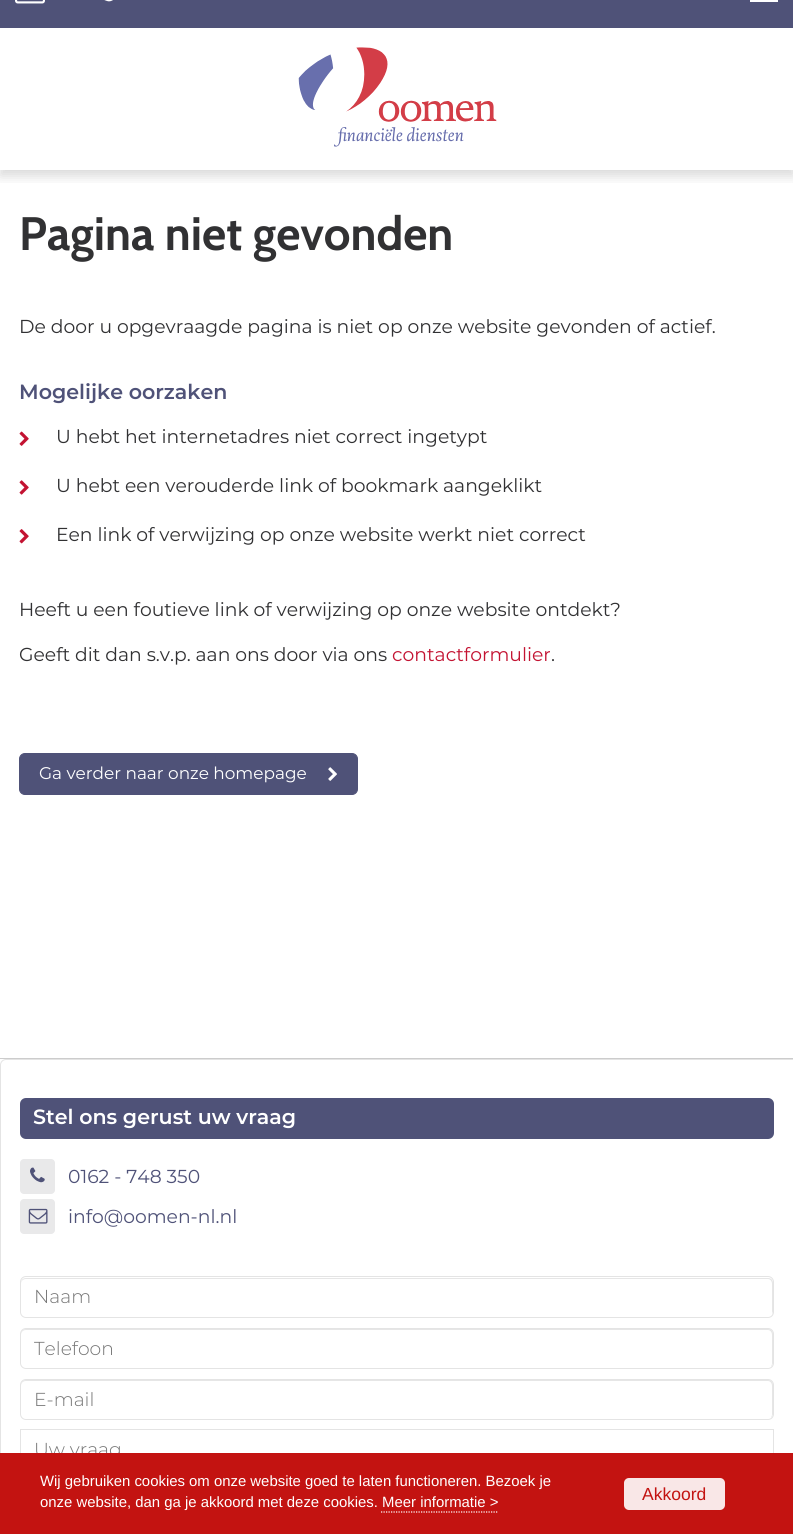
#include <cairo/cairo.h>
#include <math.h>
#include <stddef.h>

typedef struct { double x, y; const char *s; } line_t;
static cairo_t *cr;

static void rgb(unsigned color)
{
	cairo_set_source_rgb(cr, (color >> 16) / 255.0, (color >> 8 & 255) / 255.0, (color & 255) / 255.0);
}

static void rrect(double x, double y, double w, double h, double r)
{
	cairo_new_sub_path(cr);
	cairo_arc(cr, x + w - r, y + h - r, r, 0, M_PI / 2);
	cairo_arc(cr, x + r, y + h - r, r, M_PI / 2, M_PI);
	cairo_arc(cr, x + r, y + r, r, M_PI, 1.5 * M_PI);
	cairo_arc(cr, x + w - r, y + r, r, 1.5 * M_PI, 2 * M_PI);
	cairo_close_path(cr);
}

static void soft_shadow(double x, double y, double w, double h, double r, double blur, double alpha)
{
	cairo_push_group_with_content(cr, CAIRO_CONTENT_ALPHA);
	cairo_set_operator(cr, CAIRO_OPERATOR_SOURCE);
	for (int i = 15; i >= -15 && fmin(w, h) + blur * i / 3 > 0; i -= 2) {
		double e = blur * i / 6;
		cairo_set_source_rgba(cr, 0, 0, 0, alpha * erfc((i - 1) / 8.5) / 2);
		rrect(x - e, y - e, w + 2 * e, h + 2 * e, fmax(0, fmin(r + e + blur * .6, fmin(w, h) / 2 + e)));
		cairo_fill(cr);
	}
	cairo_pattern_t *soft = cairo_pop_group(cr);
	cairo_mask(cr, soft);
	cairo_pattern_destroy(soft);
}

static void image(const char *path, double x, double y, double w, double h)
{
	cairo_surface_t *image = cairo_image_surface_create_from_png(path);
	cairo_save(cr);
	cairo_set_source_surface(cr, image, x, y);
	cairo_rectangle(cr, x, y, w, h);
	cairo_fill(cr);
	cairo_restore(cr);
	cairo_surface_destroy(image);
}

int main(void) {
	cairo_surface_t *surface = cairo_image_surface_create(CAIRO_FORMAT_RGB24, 793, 1534);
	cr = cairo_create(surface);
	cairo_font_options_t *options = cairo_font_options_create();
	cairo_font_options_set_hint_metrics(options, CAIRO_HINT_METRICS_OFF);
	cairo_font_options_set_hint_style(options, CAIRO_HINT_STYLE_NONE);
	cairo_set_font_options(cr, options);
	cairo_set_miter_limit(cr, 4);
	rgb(0xffffff);
	cairo_paint(cr);
	cairo_save(cr);
	cairo_rectangle(cr, 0, 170, 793, 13);
	cairo_clip(cr);
	rgb(0x000000);
	soft_shadow(0, 34, 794, 142, 0, 6, 0.15);
	cairo_restore(cr);
	rgb(0x4f5278);
	cairo_rectangle(cr, 0, 0, 793, 28);
	cairo_fill(cr);
	image("img/1.png", 15, 0, 30, 4);
	image("img/2.png", 104, 0, 9, 2);
	rgb(0xffffff);
	cairo_rectangle(cr, 750, 0, 28, 2);
	cairo_fill(cr);
	image("img/3.png", 298, 47, 199, 100);
	image("img/4.png", 19, 431, 10, 15);
	image("img/5.png", 19, 480, 10, 15);
	image("img/6.png", 19, 529, 10, 15);
	rgb(0x4f5278);
	rrect(19.5, 753.5, 338, 41, 5.5);
	cairo_fill_preserve(cr);
	cairo_set_line_width(cr, 1);
	cairo_stroke(cr);
	image("img/7.png", 328, 767, 9, 14);
	rgb(0xcccccc);
	cairo_rectangle(cr, 0, 1058, 793, 1);
	cairo_fill(cr);
	cairo_new_path(cr);
	cairo_move_to(cr, 6, 1059.5);
	cairo_line_to(cr, 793.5, 1059.5);
	cairo_line_to(cr, 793.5, 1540.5);
	cairo_line_to(cr, 6, 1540.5);
	cairo_curve_to(cr, 3, 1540.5, 0.5, 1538, 0.5, 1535);
	cairo_line_to(cr, 0.5, 1065);
	cairo_curve_to(cr, 0.5, 1062, 3, 1059.5, 6, 1059.5);
	cairo_close_path(cr);
	rgb(0xe4e4e4);
	cairo_stroke(cr);
	rgb(0x4f5278);
	rrect(20, 1098, 754, 41, 6);
	cairo_fill(cr);
	rgb(0xe9e9ea);
	rrect(20, 1159, 35, 35, 4);
	cairo_fill(cr);
	image("img/8.png", 30, 1167, 15, 16);
	rrect(20, 1199, 35, 35, 4);
	cairo_fill(cr);
	image("img/9.png", 28, 1208, 20, 16);
	rgb(0xe6e6e6);
	cairo_new_path(cr);
	cairo_move_to(cr, 26, 1279);
	cairo_line_to(cr, 768, 1279);
	cairo_curve_to(cr, 770, 1279, 772, 1281, 772, 1284);
	cairo_line_to(cr, 772, 1312);
	cairo_line_to(cr, 772, 1315);
	cairo_curve_to(cr, 772, 1314, 773, 1312, 773, 1311);
	cairo_line_to(cr, 773, 1283);
	cairo_curve_to(cr, 773, 1280, 771, 1278, 768, 1278);
	cairo_line_to(cr, 26, 1278);
	cairo_curve_to(cr, 23, 1278, 21, 1280, 21, 1283);
	cairo_line_to(cr, 21, 1284);
	cairo_curve_to(cr, 21, 1281, 23, 1279, 26, 1279);
	cairo_close_path(cr);
	cairo_fill(cr);
	rrect(20.5, 1276.5, 753, 41, 5.5);
	rgb(0xe4e4e4);
	cairo_stroke(cr);
	rgb(0xe6e6e6);
	cairo_new_path(cr);
	cairo_move_to(cr, 26, 1330);
	cairo_line_to(cr, 768, 1330);
	cairo_curve_to(cr, 770, 1330, 772, 1332, 772, 1335);
	cairo_line_to(cr, 772, 1364);
	cairo_line_to(cr, 771, 1367);
	cairo_curve_to(cr, 772, 1366, 773, 1364, 773, 1363);
	cairo_line_to(cr, 773, 1334);
	cairo_curve_to(cr, 773, 1331, 771, 1329, 768, 1329);
	cairo_line_to(cr, 26, 1329);
	cairo_curve_to(cr, 23, 1329, 21, 1331, 21, 1334);
	cairo_line_to(cr, 21, 1335);
	cairo_curve_to(cr, 21, 1332, 23, 1330, 26, 1330);
	cairo_close_path(cr);
	cairo_fill(cr);
	rrect(20.5, 1328.5, 753, 40, 5.5);
	rgb(0xe4e4e4);
	cairo_stroke(cr);
	rgb(0xe6e6e6);
	cairo_new_path(cr);
	cairo_move_to(cr, 26, 1381);
	cairo_line_to(cr, 768, 1381);
	cairo_curve_to(cr, 770, 1381, 772, 1383, 772, 1386);
	cairo_line_to(cr, 772, 1415);
	cairo_line_to(cr, 771, 1418);
	cairo_curve_to(cr, 772, 1417, 773, 1415, 773, 1414);
	cairo_line_to(cr, 773, 1385);
	cairo_curve_to(cr, 773, 1382, 771, 1380, 768, 1380);
	cairo_line_to(cr, 26, 1380);
	cairo_curve_to(cr, 23, 1380, 21, 1382, 21, 1385);
	cairo_line_to(cr, 21, 1386);
	cairo_curve_to(cr, 21, 1383, 23, 1381, 26, 1381);
	cairo_close_path(cr);
	cairo_fill(cr);
	rrect(20.5, 1379.5, 753, 40, 5.5);
	rgb(0xe4e4e4);
	cairo_stroke(cr);
	cairo_rectangle(cr, 20.5, 1429.5, 753, 104);
	cairo_stroke(cr);
	cairo_select_font_face(cr, "Cabin", CAIRO_FONT_SLANT_NORMAL, CAIRO_FONT_WEIGHT_BOLD);
	cairo_set_font_size(cr, 46.9);
	rgb(0x313133);
	cairo_move_to(cr, 19, 250);
	cairo_show_text(cr, "Pagina niet gevonden");
	cairo_select_font_face(cr, "Montserrat", CAIRO_FONT_SLANT_NORMAL, CAIRO_FONT_WEIGHT_NORMAL);
	cairo_set_font_size(cr, 18.75);
	cairo_move_to(cr, 19, 333);
	cairo_show_text(cr, "De door u opgevraagde pagina is niet op onze website gevonden of actief.");
	cairo_select_font_face(cr, "Montserrat SemiBold", CAIRO_FONT_SLANT_NORMAL, CAIRO_FONT_WEIGHT_NORMAL);
	cairo_set_font_size(cr, 20.6);
	rgb(0x4f5278);
	cairo_move_to(cr, 19, 399);
	cairo_show_text(cr, "Mogelijke oorzaken");
	cairo_select_font_face(cr, "Montserrat", CAIRO_FONT_SLANT_NORMAL, CAIRO_FONT_WEIGHT_NORMAL);
	cairo_set_font_size(cr, 18.75);
	rgb(0x313133);
	{
		static const line_t items[] = {
			{56, 443, "U hebt het internetadres niet correct ingetypt"},
			{56, 492, "U hebt een verouderde link of bookmark aangeklikt"},
			{56, 541, "Een link of verwijzing op onze website werkt niet correct"},
			{19, 616, "Heeft u een foutieve link of verwijzing op onze website ontdekt?"},
			{19, 661, "Geeft dit dan s.v.p. aan ons door via ons"},
		};
		for (size_t i = 0; i < sizeof items / sizeof *items; i++) {
			cairo_move_to(cr, items[i].x, items[i].y);
			cairo_show_text(cr, items[i].s);
		}
	}
	rgb(0xc31332);
	cairo_move_to(cr, 392, 661);
	cairo_show_text(cr, "contactformulier");
	rgb(0x313133);
	cairo_move_to(cr, 551, 661);
	cairo_show_text(cr, ".");
	cairo_set_font_size(cr, 16.9);
	rgb(0xffffff);
	cairo_move_to(cr, 39, 779);
	cairo_show_text(cr, "Ga verder naar onze homepage");
	cairo_select_font_face(cr, "Montserrat SemiBold", CAIRO_FONT_SLANT_NORMAL, CAIRO_FONT_WEIGHT_NORMAL);
	cairo_set_font_size(cr, 20.6);
	cairo_move_to(cr, 33, 1124);
	cairo_show_text(cr, "Stel ons gerust uw vraag");
	cairo_select_font_face(cr, "Montserrat", CAIRO_FONT_SLANT_NORMAL, CAIRO_FONT_WEIGHT_NORMAL);
	cairo_set_font_size(cr, 18.75);
	rgb(0x4f5278);
	cairo_move_to(cr, 68, 1183);
	cairo_show_text(cr, "0162 - 748 350");
	cairo_move_to(cr, 68, 1223);
	cairo_show_text(cr, "info@oomen-nl.nl");
	cairo_select_font_face(cr, "Montserrat Light", CAIRO_FONT_SLANT_NORMAL, CAIRO_FONT_WEIGHT_NORMAL);
	rgb(0x757575);
	{
		static const line_t items[] = {
			{34, 1303, "Naam"},
			{34, 1355, "Telefoon"},
			{34, 1406, "E-mail"},
			{34, 1456, "Uw vraag"},
		};
		for (size_t i = 0; i < sizeof items / sizeof *items; i++) {
			cairo_move_to(cr, items[i].x, items[i].y);
			cairo_show_text(cr, items[i].s);
		}
	}
	rgb(0xc31311);
	cairo_rectangle(cr, 0, 1453, 793, 81);
	cairo_fill(cr);
	cairo_select_font_face(cr, "Liberation Sans", CAIRO_FONT_SLANT_NORMAL, CAIRO_FONT_WEIGHT_NORMAL);
	cairo_set_font_size(cr, 14.9);
	rgb(0xffffff);
	cairo_move_to(cr, 40, 1486);
	cairo_show_text(cr, "Wij gebruiken cookies om onze website goed te laten functioneren. Bezoek je");
	cairo_move_to(cr, 40, 1507);
	cairo_show_text(cr, "onze website, dan ga je akkoord met deze cookies. Meer informatie >");
	cairo_new_path(cr);
	cairo_move_to(cr, 381, 1512);
	cairo_line_to(cr, 497.5, 1512);
	cairo_set_line_width(cr, 1.2);
	cairo_set_dash(cr, (double[]){1.25, 1.25}, 2, 0);
	cairo_stroke(cr);
	rgb(0xf9e7e7);
	rrect(624, 1478, 101, 32, 5);
	cairo_fill(cr);
	cairo_set_font_size(cr, 17.5);
	rgb(0xc31311);
	cairo_move_to(cr, 642, 1500);
	cairo_show_text(cr, "Akkoord");
	cairo_surface_write_to_png(surface, "page.png");
	cairo_font_options_destroy(options);
	cairo_destroy(cr);
	cairo_surface_destroy(surface);
	return 0;
}
